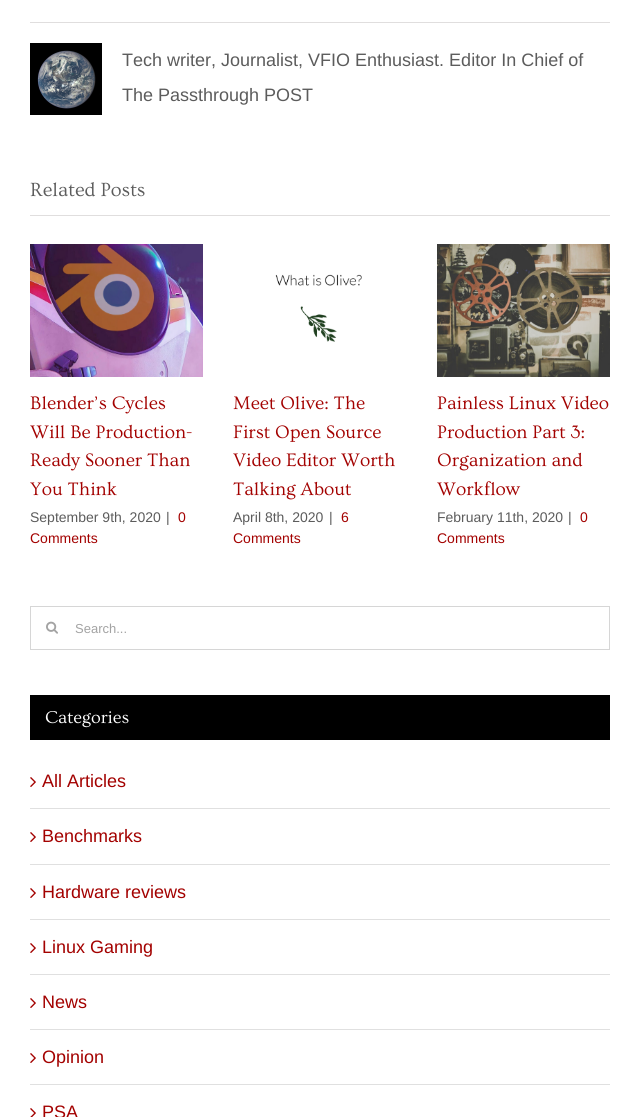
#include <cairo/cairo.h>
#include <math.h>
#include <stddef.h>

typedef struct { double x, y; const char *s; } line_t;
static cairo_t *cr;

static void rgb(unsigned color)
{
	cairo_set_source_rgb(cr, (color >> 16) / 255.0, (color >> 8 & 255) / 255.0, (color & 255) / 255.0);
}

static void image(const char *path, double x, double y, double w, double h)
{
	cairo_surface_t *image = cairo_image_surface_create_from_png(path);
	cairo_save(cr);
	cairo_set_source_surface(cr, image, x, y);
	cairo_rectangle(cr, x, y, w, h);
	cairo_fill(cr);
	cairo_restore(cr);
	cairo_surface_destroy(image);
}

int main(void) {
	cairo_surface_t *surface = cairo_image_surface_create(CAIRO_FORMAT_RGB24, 640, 1117);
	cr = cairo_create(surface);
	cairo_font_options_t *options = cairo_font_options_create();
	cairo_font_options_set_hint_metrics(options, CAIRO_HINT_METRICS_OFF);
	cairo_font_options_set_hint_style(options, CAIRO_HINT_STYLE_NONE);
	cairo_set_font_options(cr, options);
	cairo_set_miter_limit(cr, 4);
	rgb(0xffffff);
	cairo_paint(cr);
	rgb(0xe0dede);
	cairo_rectangle(cr, 30, 22, 580, 1);
	cairo_fill(cr);
	image("img/1.png", 30, 43, 72, 72);
	cairo_rectangle(cr, 30, 215, 580, 1);
	cairo_fill(cr);
	image("img/2.png", 30, 244, 173, 133);
	image("img/3.png", 275, 274, 87, 68);
	image("img/4.png", 437, 244, 173, 133);
	cairo_rectangle(cr, 30.5, 606.5, 579, 43);
	rgb(0xd6d6d6);
	cairo_set_line_width(cr, 1);
	cairo_stroke(cr);
	image("img/5.png", 46, 621, 12, 13);
	rgb(0x000000);
	cairo_rectangle(cr, 30, 695, 580, 45);
	cairo_fill(cr);
	rgb(0xe0e0e0);
	cairo_rectangle(cr, 30, 808, 580, 1);
	cairo_fill(cr);
	image("img/6.png", 30, 777, 6, 10);
	cairo_rectangle(cr, 30, 864, 580, 1);
	cairo_fill(cr);
	image("img/6.png", 30, 832, 6, 10);
	cairo_rectangle(cr, 30, 919, 580, 1);
	cairo_fill(cr);
	image("img/6.png", 30, 888, 6, 10);
	cairo_rectangle(cr, 30, 974, 580, 1);
	cairo_fill(cr);
	image("img/6.png", 30, 943, 6, 10);
	cairo_rectangle(cr, 30, 1029, 580, 1);
	cairo_fill(cr);
	image("img/6.png", 30, 998, 6, 10);
	cairo_rectangle(cr, 30, 1084, 580, 1);
	cairo_fill(cr);
	image("img/6.png", 30, 1053, 6, 10);
	image("img/7.png", 30, 1108, 6, 9);
	cairo_select_font_face(cr, "Liberation Sans", CAIRO_FONT_SLANT_NORMAL, CAIRO_FONT_WEIGHT_NORMAL);
	cairo_set_font_size(cr, 18);
	rgb(0x5c5c5c);
	cairo_move_to(cr, 122, 66);
	cairo_show_text(cr, "Tech writer, Journalist, VFIO Enthusiast. Editor In Chief of");
	cairo_move_to(cr, 122, 101);
	cairo_show_text(cr, "The Passthrough POST");
	cairo_select_font_face(cr, "Ovo", CAIRO_FONT_SLANT_NORMAL, CAIRO_FONT_WEIGHT_NORMAL);
	cairo_set_font_size(cr, 20);
	cairo_move_to(cr, 30, 196);
	cairo_show_text(cr, "Related Posts");
	cairo_set_font_size(cr, 19);
	rgb(0xa30100);
	{
		static const line_t items[] = {
			{30, 409, "Blender’s Cycles"},
			{30, 438, "Will Be Production-"},
			{30, 466, "Ready Sooner Than"},
			{30, 495, "You Think"},
		};
		for (size_t i = 0; i < sizeof items / sizeof *items; i++) {
			cairo_move_to(cr, items[i].x, items[i].y);
			cairo_show_text(cr, items[i].s);
		}
	}
	cairo_select_font_face(cr, "Liberation Sans", CAIRO_FONT_SLANT_NORMAL, CAIRO_FONT_WEIGHT_NORMAL);
	cairo_set_font_size(cr, 14);
	rgb(0x5c5c5c);
	cairo_move_to(cr, 30, 522);
	cairo_show_text(cr, "September 9th, 2020");
	cairo_move_to(cr, 166, 522);
	cairo_show_text(cr, "|");
	rgb(0xa30100);
	cairo_move_to(cr, 178, 522);
	cairo_show_text(cr, "0");
	cairo_move_to(cr, 30, 543);
	cairo_show_text(cr, "Comments");
	cairo_select_font_face(cr, "Ovo", CAIRO_FONT_SLANT_NORMAL, CAIRO_FONT_WEIGHT_NORMAL);
	cairo_set_font_size(cr, 19);
	{
		static const line_t items[] = {
			{233, 409, "Meet Olive: The"},
			{233, 438, "First Open Source"},
			{233, 466, "Video Editor Worth"},
			{233, 495, "Talking About"},
		};
		for (size_t i = 0; i < sizeof items / sizeof *items; i++) {
			cairo_move_to(cr, items[i].x, items[i].y);
			cairo_show_text(cr, items[i].s);
		}
	}
	cairo_select_font_face(cr, "Liberation Sans", CAIRO_FONT_SLANT_NORMAL, CAIRO_FONT_WEIGHT_NORMAL);
	cairo_set_font_size(cr, 14);
	rgb(0x5c5c5c);
	cairo_move_to(cr, 233, 522);
	cairo_show_text(cr, "April 8th, 2020");
	cairo_move_to(cr, 329, 522);
	cairo_show_text(cr, "|");
	rgb(0xa30100);
	cairo_move_to(cr, 341, 522);
	cairo_show_text(cr, "6");
	cairo_move_to(cr, 233, 543);
	cairo_show_text(cr, "Comments");
	cairo_select_font_face(cr, "Ovo", CAIRO_FONT_SLANT_NORMAL, CAIRO_FONT_WEIGHT_NORMAL);
	cairo_set_font_size(cr, 19);
	{
		static const line_t items[] = {
			{437, 409, "Painless Linux Video"},
			{437, 438, "Production Part 3:"},
			{437, 466, "Organization and"},
			{437, 495, "Workflow"},
		};
		for (size_t i = 0; i < sizeof items / sizeof *items; i++) {
			cairo_move_to(cr, items[i].x, items[i].y);
			cairo_show_text(cr, items[i].s);
		}
	}
	cairo_select_font_face(cr, "Liberation Sans", CAIRO_FONT_SLANT_NORMAL, CAIRO_FONT_WEIGHT_NORMAL);
	cairo_set_font_size(cr, 14);
	rgb(0x5c5c5c);
	cairo_move_to(cr, 437, 522);
	cairo_show_text(cr, "February 11th, 2020");
	cairo_move_to(cr, 568, 522);
	cairo_show_text(cr, "|");
	rgb(0xa30100);
	cairo_move_to(cr, 580, 522);
	cairo_show_text(cr, "0");
	cairo_move_to(cr, 437, 543);
	cairo_show_text(cr, "Comments");
	cairo_set_font_size(cr, 13);
	rgb(0xa3a3a3);
	cairo_move_to(cr, 75, 633);
	cairo_show_text(cr, "Search...");
	cairo_select_font_face(cr, "Ovo", CAIRO_FONT_SLANT_NORMAL, CAIRO_FONT_WEIGHT_NORMAL);
	cairo_set_font_size(cr, 18);
	rgb(0xffffff);
	cairo_move_to(cr, 45, 723);
	cairo_show_text(cr, "Categories");
	cairo_select_font_face(cr, "Liberation Sans", CAIRO_FONT_SLANT_NORMAL, CAIRO_FONT_WEIGHT_NORMAL);
	rgb(0xa30100);
	{
		static const line_t items[] = {
			{42, 787, "All Articles"},
			{42, 842, "Benchmarks"},
			{42, 898, "Hardware reviews"},
			{42, 953, "Linux Gaming"},
			{42, 1008, "News"},
			{42, 1063, "Opinion"},
			{42, 1118, "PSA"},
		};
		for (size_t i = 0; i < sizeof items / sizeof *items; i++) {
			cairo_move_to(cr, items[i].x, items[i].y);
			cairo_show_text(cr, items[i].s);
		}
	}
	cairo_surface_write_to_png(surface, "page.png");
	cairo_font_options_destroy(options);
	cairo_destroy(cr);
	cairo_surface_destroy(surface);
	return 0;
}
